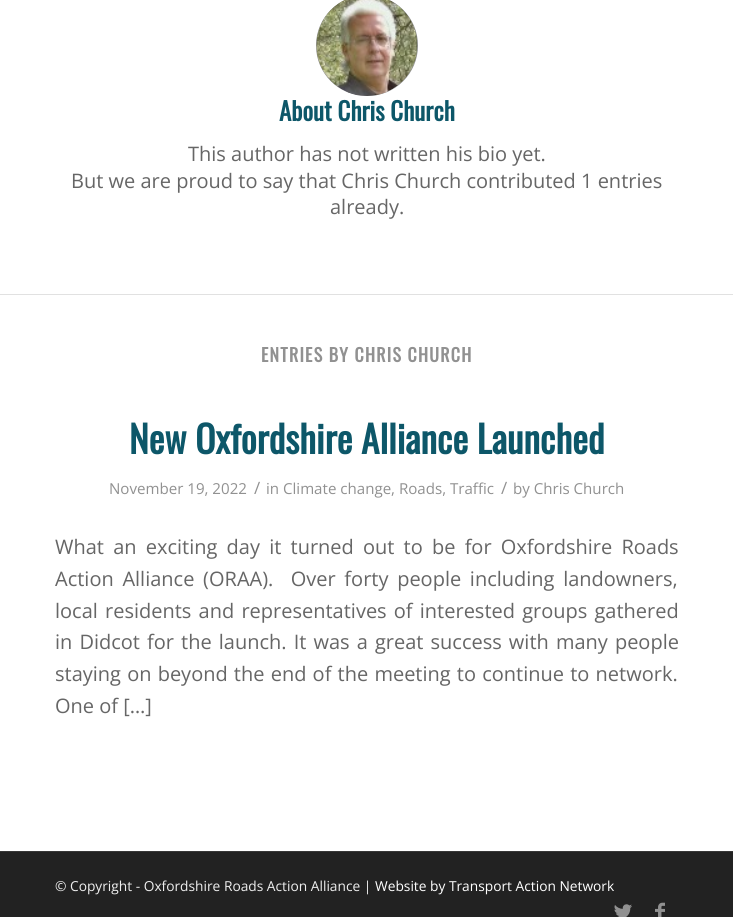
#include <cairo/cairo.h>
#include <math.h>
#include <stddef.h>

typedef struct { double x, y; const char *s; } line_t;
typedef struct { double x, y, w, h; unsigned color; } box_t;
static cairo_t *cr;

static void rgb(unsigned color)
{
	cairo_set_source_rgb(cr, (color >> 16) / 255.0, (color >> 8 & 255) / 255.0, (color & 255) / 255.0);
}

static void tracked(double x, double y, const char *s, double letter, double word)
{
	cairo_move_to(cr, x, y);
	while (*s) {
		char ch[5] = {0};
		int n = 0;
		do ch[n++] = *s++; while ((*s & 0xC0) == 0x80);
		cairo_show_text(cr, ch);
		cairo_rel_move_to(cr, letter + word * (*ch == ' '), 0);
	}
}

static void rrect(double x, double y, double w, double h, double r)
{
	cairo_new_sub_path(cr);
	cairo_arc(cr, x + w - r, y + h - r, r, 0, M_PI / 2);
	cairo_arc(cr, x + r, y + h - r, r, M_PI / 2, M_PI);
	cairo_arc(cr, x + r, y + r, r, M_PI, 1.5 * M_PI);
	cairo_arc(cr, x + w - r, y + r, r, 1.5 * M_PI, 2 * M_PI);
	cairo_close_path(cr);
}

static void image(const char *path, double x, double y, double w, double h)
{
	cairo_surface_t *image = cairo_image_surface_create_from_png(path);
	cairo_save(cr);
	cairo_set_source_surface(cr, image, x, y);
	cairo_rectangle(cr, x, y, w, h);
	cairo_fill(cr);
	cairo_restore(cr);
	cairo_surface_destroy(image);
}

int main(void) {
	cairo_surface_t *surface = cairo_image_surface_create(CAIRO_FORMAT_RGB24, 733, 917);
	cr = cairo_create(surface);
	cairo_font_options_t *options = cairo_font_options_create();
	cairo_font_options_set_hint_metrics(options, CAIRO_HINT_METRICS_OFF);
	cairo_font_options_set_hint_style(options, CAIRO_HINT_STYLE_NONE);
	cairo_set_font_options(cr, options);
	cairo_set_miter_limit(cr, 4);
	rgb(0xffffff);
	cairo_paint(cr);
	rgb(0x919191);
	rrect(316, -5, 102, 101, 50.5);
	cairo_fill(cr);
	image("img/1.png", 316, 0, 102, 96);
	{
		static const box_t items[] = {
			{0, 294, 733, 1, 0xe1e1e1},
			{0, 852, 733, 65, 0x222222},
			{0, 851, 733, 1, 0x373737},
		};
		for (size_t i = 0; i < sizeof items / sizeof *items; i++) {
			rgb(items[i].color);
			cairo_rectangle(cr, items[i].x, items[i].y, items[i].w, items[i].h);
			cairo_fill(cr);
		}
	}
	image("img/2.png", 614, 904, 18, 13);
	image("img/3.png", 655, 902, 10, 15);
	cairo_select_font_face(cr, "Oswald", CAIRO_FONT_SLANT_NORMAL, CAIRO_FONT_WEIGHT_BOLD);
	cairo_set_font_size(cr, 25);
	rgb(0x0d5769);
	cairo_move_to(cr, 279, 121);
	cairo_show_text(cr, "About Chris Church");
	cairo_select_font_face(cr, "Open Sans", CAIRO_FONT_SLANT_NORMAL, CAIRO_FONT_WEIGHT_NORMAL);
	cairo_set_font_size(cr, 20);
	rgb(0x666666);
	{
		static const line_t items[] = {
			{188, 161, "This author has not written his bio yet."},
			{71, 188, "But we are proud to say that Chris Church contributed 1 entries"},
			{330, 214, "already."},
		};
		for (size_t i = 0; i < sizeof items / sizeof *items; i++) {
			cairo_move_to(cr, items[i].x, items[i].y);
			cairo_show_text(cr, items[i].s);
		}
	}
	cairo_select_font_face(cr, "Oswald", CAIRO_FONT_SLANT_NORMAL, CAIRO_FONT_WEIGHT_BOLD);
	cairo_set_font_size(cr, 17.9);
	rgb(0x919191);
	tracked(261, 362, "ENTRIES BY CHRIS CHURCH", 1.25, 0);
	cairo_set_font_size(cr, 37.5);
	rgb(0x0d5769);
	cairo_move_to(cr, 129, 454);
	cairo_show_text(cr, "New Oxfordshire Alliance Launched");
	cairo_select_font_face(cr, "Open Sans", CAIRO_FONT_SLANT_NORMAL, CAIRO_FONT_WEIGHT_NORMAL);
	cairo_set_font_size(cr, 15.1);
	rgb(0x919191);
	cairo_move_to(cr, 109, 494);
	cairo_show_text(cr, "November 19, 2022");
	cairo_set_font_size(cr, 17);
	cairo_move_to(cr, 254, 494);
	cairo_show_text(cr, "/");
	cairo_set_font_size(cr, 15.1);
	cairo_move_to(cr, 266, 494);
	cairo_show_text(cr, "in Climate change, Roads, Traffic");
	cairo_set_font_size(cr, 17);
	cairo_move_to(cr, 501, 494);
	cairo_show_text(cr, "/");
	cairo_set_font_size(cr, 15.1);
	cairo_move_to(cr, 513, 494);
	cairo_show_text(cr, "by Chris Church");
	cairo_set_font_size(cr, 20);
	rgb(0x666666);
	tracked(55, 554, "What an exciting day it turned out to be for Oxfordshire Roads", 0, 4);
	tracked(55, 586, "Action Alliance (ORAA).  Over forty people including landowners,", 0, 3.5);
	tracked(55, 618, "local residents and representatives of interested groups gathered", 0, 2);
	tracked(55, 649, "in Didcot for the launch. It was a great success with many people", 0, 1.9);
	tracked(55, 681, "staying on beyond the end of the meeting to continue to network.", 0, 1);
	cairo_move_to(cr, 55, 713);
	cairo_show_text(cr, "One of […]");
	cairo_set_font_size(cr, 13.75);
	rgb(0xeeeeee);
	cairo_move_to(cr, 55, 891);
	cairo_show_text(cr, "© Copyright - Oxfordshire Roads Action Alliance |");
	rgb(0xffffff);
	cairo_move_to(cr, 375, 891);
	cairo_show_text(cr, "Website by Transport Action Network");
	cairo_surface_write_to_png(surface, "page.png");
	cairo_font_options_destroy(options);
	cairo_destroy(cr);
	cairo_surface_destroy(surface);
	return 0;
}
